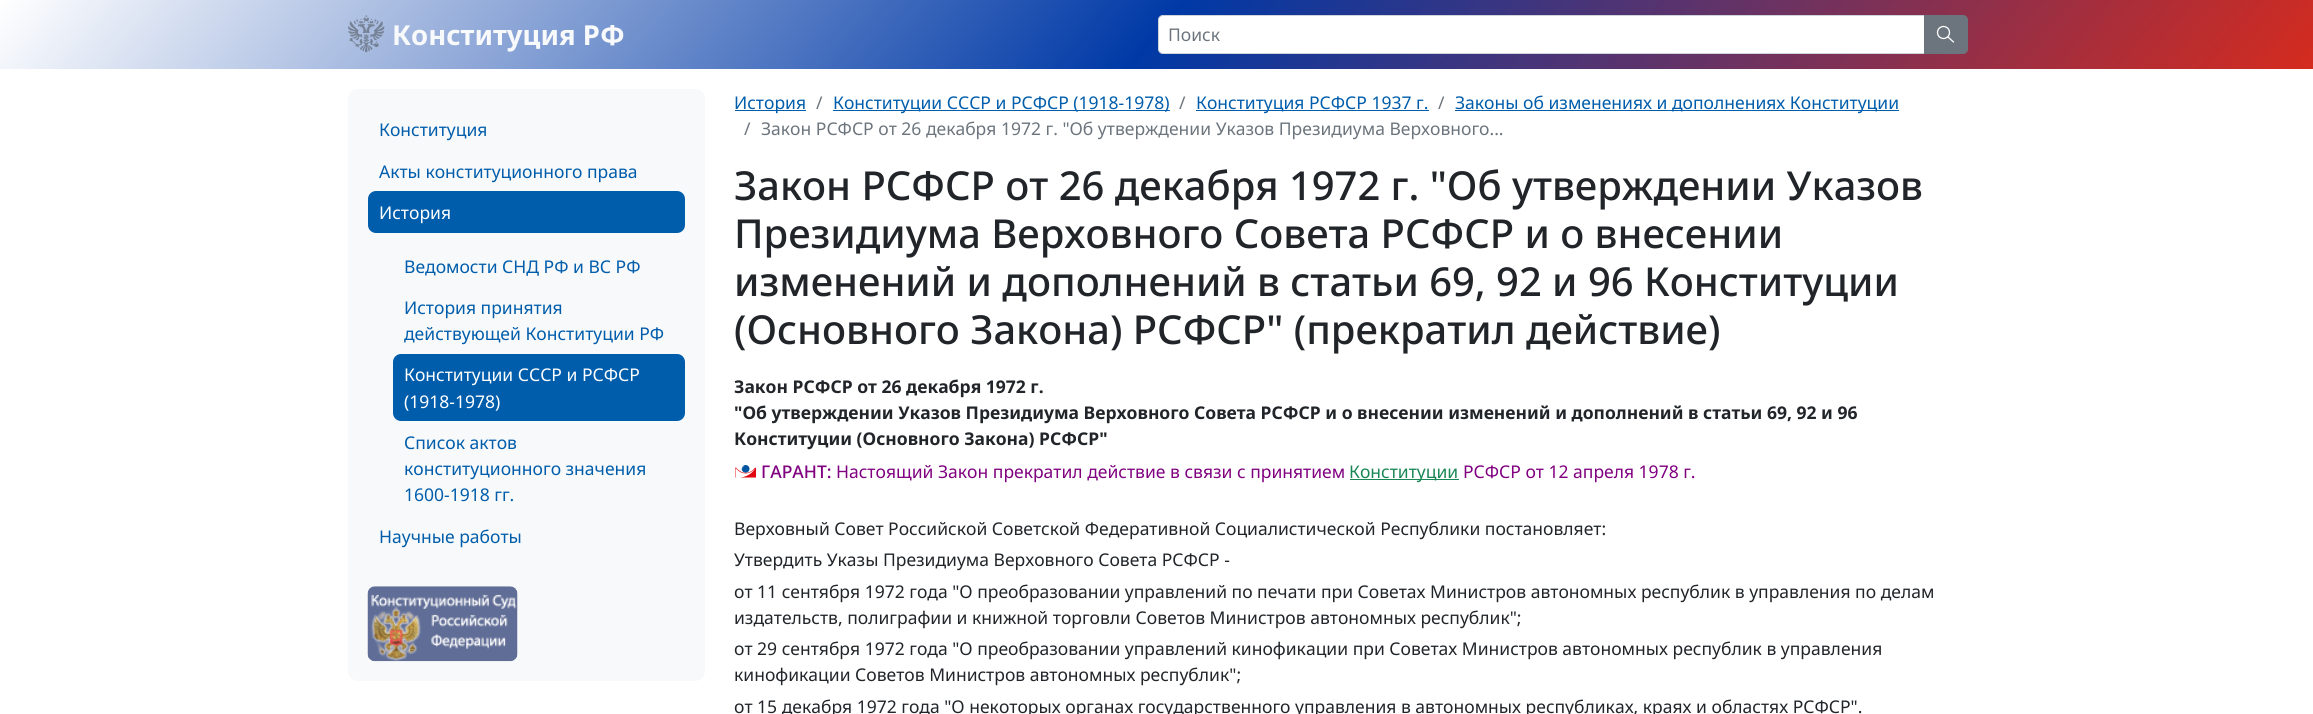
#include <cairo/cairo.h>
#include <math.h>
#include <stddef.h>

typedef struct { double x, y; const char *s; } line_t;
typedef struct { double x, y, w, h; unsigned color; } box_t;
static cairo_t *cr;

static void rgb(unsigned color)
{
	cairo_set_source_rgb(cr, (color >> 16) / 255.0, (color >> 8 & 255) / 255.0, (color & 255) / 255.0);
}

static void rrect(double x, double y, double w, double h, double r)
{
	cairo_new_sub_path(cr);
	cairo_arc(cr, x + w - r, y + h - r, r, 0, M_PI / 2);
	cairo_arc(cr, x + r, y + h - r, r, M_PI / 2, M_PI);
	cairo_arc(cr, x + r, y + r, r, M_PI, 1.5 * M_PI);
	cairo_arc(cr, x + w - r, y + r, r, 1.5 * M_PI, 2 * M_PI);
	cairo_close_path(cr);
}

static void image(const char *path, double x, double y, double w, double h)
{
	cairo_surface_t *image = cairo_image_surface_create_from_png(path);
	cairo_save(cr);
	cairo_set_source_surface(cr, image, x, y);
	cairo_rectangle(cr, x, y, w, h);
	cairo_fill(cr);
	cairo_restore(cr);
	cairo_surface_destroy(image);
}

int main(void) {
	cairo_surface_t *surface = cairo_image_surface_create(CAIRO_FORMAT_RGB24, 2313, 714);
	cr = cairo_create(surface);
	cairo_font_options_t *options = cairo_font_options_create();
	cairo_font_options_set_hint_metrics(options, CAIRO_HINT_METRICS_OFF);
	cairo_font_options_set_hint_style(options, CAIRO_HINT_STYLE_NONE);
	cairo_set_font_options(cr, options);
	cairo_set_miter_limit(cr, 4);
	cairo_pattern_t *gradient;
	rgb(0xffffff);
	cairo_paint(cr);
	gradient = cairo_pattern_create_linear(461, -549, 1853, 618);
	cairo_pattern_add_color_stop_rgba(gradient, 0, 1, 1, 1, 1);
	cairo_pattern_add_color_stop_rgba(gradient, 0.5, 0, 0.224, 0.651, 1);
	cairo_pattern_add_color_stop_rgba(gradient, 1, 0.835, 0.169, 0.118, 1);
	cairo_set_source(cr, gradient);
	cairo_pattern_destroy(gradient);
	cairo_rectangle(cr, 0, 0, 2313, 69);
	cairo_fill(cr);
	image("img/1.png", 348, 15, 37, 38);
	rgb(0xffffff);
	cairo_new_path(cr);
	cairo_move_to(cr, 1163, 15.5);
	cairo_line_to(cr, 1924.5, 15.5);
	cairo_line_to(cr, 1924.5, 53.5);
	cairo_line_to(cr, 1163, 53.5);
	cairo_curve_to(cr, 1160.5, 53.5, 1158.5, 51.5, 1158.5, 49);
	cairo_line_to(cr, 1158.5, 20);
	cairo_curve_to(cr, 1158.5, 17.5, 1160.5, 15.5, 1163, 15.5);
	cairo_close_path(cr);
	cairo_fill_preserve(cr);
	rgb(0xced4da);
	cairo_set_line_width(cr, 1);
	cairo_stroke(cr);
	rgb(0x6c757d);
	cairo_new_path(cr);
	cairo_move_to(cr, 1924.5, 15.5);
	cairo_line_to(cr, 1963, 15.5);
	cairo_curve_to(cr, 1965.5, 15.5, 1967.5, 17.5, 1967.5, 20);
	cairo_line_to(cr, 1967.5, 49);
	cairo_curve_to(cr, 1967.5, 51.5, 1965.5, 53.5, 1963, 53.5);
	cairo_line_to(cr, 1924.5, 53.5);
	cairo_close_path(cr);
	cairo_fill_preserve(cr);
	cairo_stroke(cr);
	cairo_arc(cr, 1943.5, 32.5, 6, 0, 2 * M_PI);
	rgb(0xffffff);
	cairo_set_line_width(cr, 1.3);
	cairo_stroke(cr);
	cairo_new_path(cr);
	cairo_move_to(cr, 1953.5, 42);
	cairo_line_to(cr, 1948, 37);
	cairo_set_line_cap(cr, CAIRO_LINE_CAP_ROUND);
	cairo_set_line_join(cr, CAIRO_LINE_JOIN_ROUND);
	cairo_stroke(cr);
	rgb(0xf8f9fa);
	rrect(348, 89, 357, 592, 10);
	cairo_fill(cr);
	rgb(0x005dab);
	rrect(368, 191, 317, 42, 8);
	cairo_fill(cr);
	rrect(393, 354, 292, 67, 8);
	cairo_fill(cr);
	image("img/2.png", 367, 586, 151, 76);
	{
		static const box_t items[] = {
			{735, 110, 71, 1, 0x005dab},
			{833, 110, 337, 1, 0x005dab},
			{1196, 110, 233, 1, 0x005dab},
			{1455, 110, 444, 1, 0x005dab},
		};
		for (size_t i = 0; i < sizeof items / sizeof *items; i++) {
			rgb(items[i].color);
			cairo_rectangle(cr, items[i].x, items[i].y, items[i].w, items[i].h);
			cairo_fill(cr);
		}
	}
	image("img/3.png", 735, 465, 21, 13);
	rgb(0x198754);
	cairo_rectangle(cr, 1350, 479, 109, 1);
	cairo_fill(cr);
	cairo_select_font_face(cr, "Noto Sans", CAIRO_FONT_SLANT_NORMAL, CAIRO_FONT_WEIGHT_BOLD);
	cairo_set_font_size(cr, 27.5);
	rgb(0xf8f9fa);
	cairo_move_to(cr, 392, 45);
	cairo_show_text(cr, "Конституция РФ");
	cairo_select_font_face(cr, "Noto Sans", CAIRO_FONT_SLANT_NORMAL, CAIRO_FONT_WEIGHT_NORMAL);
	cairo_set_font_size(cr, 17.5);
	rgb(0x6c757d);
	cairo_move_to(cr, 1168, 41);
	cairo_show_text(cr, "Поиск");
	rgb(0x005dab);
	cairo_move_to(cr, 379, 136);
	cairo_show_text(cr, "Конституция");
	cairo_move_to(cr, 379, 178);
	cairo_show_text(cr, "Акты конституционного права");
	rgb(0xffffff);
	cairo_move_to(cr, 379, 219);
	cairo_show_text(cr, "История");
	rgb(0x005dab);
	{
		static const line_t items[] = {
			{404, 273, "Ведомости СНД РФ и ВС РФ"},
			{404, 314, "История принятия"},
			{404, 340, "действующей Конституции РФ"},
		};
		for (size_t i = 0; i < sizeof items / sizeof *items; i++) {
			cairo_move_to(cr, items[i].x, items[i].y);
			cairo_show_text(cr, items[i].s);
		}
	}
	rgb(0xffffff);
	cairo_move_to(cr, 404, 381);
	cairo_show_text(cr, "Конституции СССР и РСФСР");
	cairo_move_to(cr, 404, 408);
	cairo_show_text(cr, "(1918-1978)");
	rgb(0x005dab);
	{
		static const line_t items[] = {
			{404, 449, "Список актов"},
			{404, 475, "конституционного значения"},
			{404, 501, "1600-1918 гг."},
			{379, 543, "Научные работы"},
			{734, 109, "История"},
		};
		for (size_t i = 0; i < sizeof items / sizeof *items; i++) {
			cairo_move_to(cr, items[i].x, items[i].y);
			cairo_show_text(cr, items[i].s);
		}
	}
	rgb(0x6c757d);
	cairo_move_to(cr, 816, 109);
	cairo_show_text(cr, "/");
	rgb(0x005dab);
	cairo_move_to(cr, 833, 109);
	cairo_show_text(cr, "Конституции СССР и РСФСР (1918-1978)");
	rgb(0x6c757d);
	cairo_move_to(cr, 1179, 109);
	cairo_show_text(cr, "/");
	rgb(0x005dab);
	cairo_move_to(cr, 1196, 109);
	cairo_show_text(cr, "Конституция РСФСР 1937 г.");
	rgb(0x6c757d);
	cairo_move_to(cr, 1438, 109);
	cairo_show_text(cr, "/");
	rgb(0x005dab);
	cairo_move_to(cr, 1455, 109);
	cairo_show_text(cr, "Законы об изменениях и дополнениях Конституции");
	rgb(0x6c757d);
	cairo_move_to(cr, 744, 135);
	cairo_show_text(cr, "/");
	cairo_move_to(cr, 761, 135);
	cairo_show_text(cr, "Закон РСФСР от 26 декабря 1972 г. \"Об утверждении Указов Президиума Верховного...");
	cairo_select_font_face(cr, "Noto Sans Medium", CAIRO_FONT_SLANT_NORMAL, CAIRO_FONT_WEIGHT_NORMAL);
	cairo_set_font_size(cr, 39.9);
	rgb(0x212529);
	{
		static const line_t items[] = {
			{734, 200, "Закон РСФСР от 26 декабря 1972 г. \"Об утверждении Указов"},
			{734, 248, "Президиума Верховного Совета РСФСР и о внесении"},
			{734, 296, "изменений и дополнений в статьи 69, 92 и 96 Конституции"},
			{734, 344, "(Основного Закона) РСФСР\" (прекратил действие)"},
		};
		for (size_t i = 0; i < sizeof items / sizeof *items; i++) {
			cairo_move_to(cr, items[i].x, items[i].y);
			cairo_show_text(cr, items[i].s);
		}
	}
	cairo_select_font_face(cr, "Noto Sans", CAIRO_FONT_SLANT_NORMAL, CAIRO_FONT_WEIGHT_BOLD);
	cairo_set_font_size(cr, 17.5);
	{
		static const line_t items[] = {
			{734, 393, "Закон РСФСР от 26 декабря 1972 г."},
			{734, 419, "\"Об утверждении Указов Президиума Верховного Совета РСФСР и о внесении изменений и дополнений в статьи 69, 92 и 96"},
			{734, 445, "Конституции (Основного Закона) РСФСР\""},
		};
		for (size_t i = 0; i < sizeof items / sizeof *items; i++) {
			cairo_move_to(cr, items[i].x, items[i].y);
			cairo_show_text(cr, items[i].s);
		}
	}
	cairo_select_font_face(cr, "Noto Sans Medium", CAIRO_FONT_SLANT_NORMAL, CAIRO_FONT_WEIGHT_NORMAL);
	rgb(0x800080);
	cairo_move_to(cr, 761, 478);
	cairo_show_text(cr, "ГАРАНТ:");
	cairo_select_font_face(cr, "Noto Sans", CAIRO_FONT_SLANT_NORMAL, CAIRO_FONT_WEIGHT_NORMAL);
	cairo_move_to(cr, 836, 478);
	cairo_show_text(cr, "Настоящий Закон прекратил действие в связи с принятием");
	rgb(0x198754);
	cairo_move_to(cr, 1349, 478);
	cairo_show_text(cr, "Конституции");
	rgb(0x800080);
	cairo_move_to(cr, 1463, 478);
	cairo_show_text(cr, "РСФСР от 12 апреля 1978 г.");
	rgb(0x212529);
	{
		static const line_t items[] = {
			{734, 535, "Верховный Совет Российской Советской Федеративной Социалистической Республики постановляет:"},
			{734, 566, "Утвердить Указы Президиума Верховного Совета РСФСР -"},
			{734, 598, "от 11 сентября 1972 года \"О преобразовании управлений по печати при Советах Министров автономных республик в управления по делам"},
			{734, 624, "издательств, полиграфии и книжной торговли Советов Министров автономных республик\";"},
			{734, 655, "от 29 сентября 1972 года \"О преобразовании управлений кинофикации при Советах Министров автономных республик в управления"},
			{734, 681, "кинофикации Советов Министров автономных республик\";"},
			{734, 713, "от 15 декабря 1972 года \"О некоторых органах государственного управления в автономных республиках, краях и областях РСФСР\"."},
		};
		for (size_t i = 0; i < sizeof items / sizeof *items; i++) {
			cairo_move_to(cr, items[i].x, items[i].y);
			cairo_show_text(cr, items[i].s);
		}
	}
	cairo_surface_write_to_png(surface, "page.png");
	cairo_font_options_destroy(options);
	cairo_destroy(cr);
	cairo_surface_destroy(surface);
	return 0;
}
